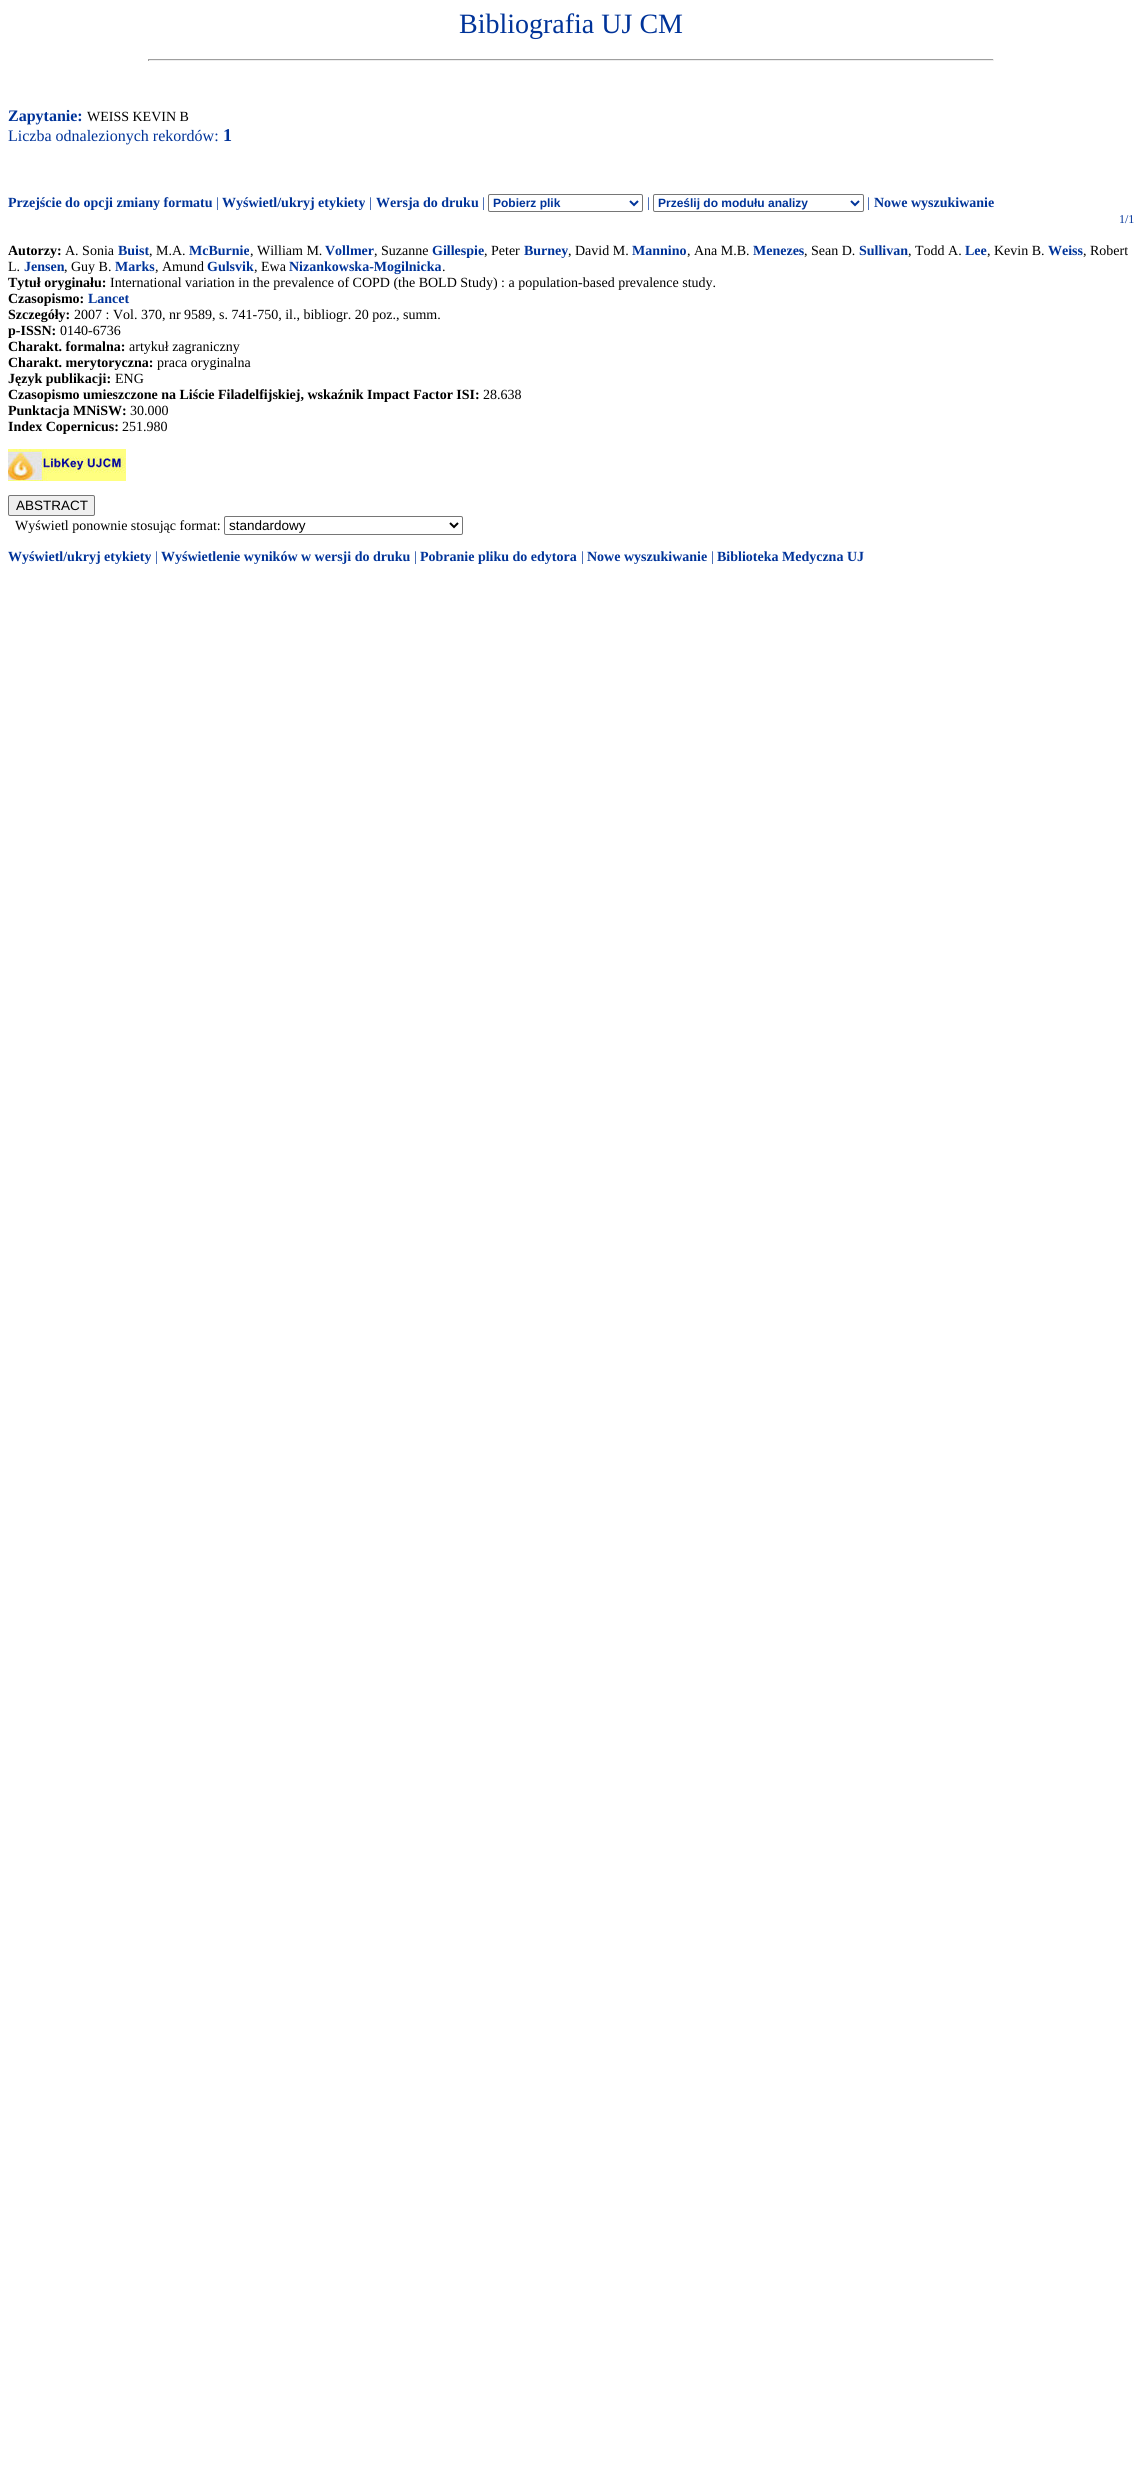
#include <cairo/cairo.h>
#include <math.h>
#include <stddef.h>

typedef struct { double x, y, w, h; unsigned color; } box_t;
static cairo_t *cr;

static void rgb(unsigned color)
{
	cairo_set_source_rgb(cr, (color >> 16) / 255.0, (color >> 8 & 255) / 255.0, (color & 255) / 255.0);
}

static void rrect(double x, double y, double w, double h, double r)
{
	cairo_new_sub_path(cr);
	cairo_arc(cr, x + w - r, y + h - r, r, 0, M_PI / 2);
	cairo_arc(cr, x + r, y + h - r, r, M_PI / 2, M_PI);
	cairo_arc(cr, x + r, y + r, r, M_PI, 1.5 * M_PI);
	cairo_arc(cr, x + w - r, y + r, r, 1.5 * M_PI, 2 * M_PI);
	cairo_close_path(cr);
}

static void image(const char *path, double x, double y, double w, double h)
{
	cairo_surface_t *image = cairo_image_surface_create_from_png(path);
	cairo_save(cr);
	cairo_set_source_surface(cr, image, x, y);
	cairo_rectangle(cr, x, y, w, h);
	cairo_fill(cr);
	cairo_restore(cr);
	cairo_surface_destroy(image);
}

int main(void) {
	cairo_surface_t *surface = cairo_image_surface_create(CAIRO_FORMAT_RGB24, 1142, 2478);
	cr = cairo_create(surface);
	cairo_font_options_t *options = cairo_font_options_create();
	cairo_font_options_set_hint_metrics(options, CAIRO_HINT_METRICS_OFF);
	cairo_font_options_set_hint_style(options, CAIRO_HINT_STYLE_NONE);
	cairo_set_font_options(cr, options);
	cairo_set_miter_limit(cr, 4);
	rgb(0xffffff);
	cairo_paint(cr);
	{
		static const box_t items[] = {
			{148, 59, 846, 1, 0x9f9f9f},
			{993, 59, 1, 2, 0xeeeeee},
			{148, 60, 846, 1, 0xeeeeee},
			{148, 59, 1, 2, 0x9f9f9f},
		};
		for (size_t i = 0; i < sizeof items / sizeof *items; i++) {
			rgb(items[i].color);
			cairo_rectangle(cr, items[i].x, items[i].y, items[i].w, items[i].h);
			cairo_fill(cr);
		}
	}
	rrect(488.5, 194.5, 154, 17, 1.5);
	rgb(0x767676);
	cairo_set_line_width(cr, 1);
	cairo_stroke(cr);
	cairo_new_path(cr);
	cairo_move_to(cr, 630, 201);
	cairo_line_to(cr, 634, 205);
	cairo_line_to(cr, 638, 201);
	rgb(0x003399);
	cairo_set_line_width(cr, 2);
	cairo_stroke(cr);
	rrect(653.5, 194.5, 210, 17, 1.5);
	rgb(0x767676);
	cairo_set_line_width(cr, 1);
	cairo_stroke(cr);
	cairo_new_path(cr);
	cairo_move_to(cr, 851, 201);
	cairo_line_to(cr, 855, 205);
	cairo_line_to(cr, 859, 201);
	rgb(0x003399);
	cairo_set_line_width(cr, 2);
	cairo_stroke(cr);
	image("img/1.png", 8, 449, 118, 32);
	rgb(0xefefef);
	rrect(8.5, 495.5, 86, 20, 1.5);
	cairo_fill_preserve(cr);
	rgb(0x767676);
	cairo_set_line_width(cr, 1);
	cairo_stroke(cr);
	rrect(224.5, 516.5, 238, 18, 1.5);
	cairo_stroke(cr);
	cairo_new_path(cr);
	cairo_move_to(cr, 450, 523);
	cairo_line_to(cr, 454, 527);
	cairo_line_to(cr, 458, 523);
	rgb(0x000000);
	cairo_set_line_width(cr, 2);
	cairo_stroke(cr);
	cairo_select_font_face(cr, "Liberation Serif", CAIRO_FONT_SLANT_NORMAL, CAIRO_FONT_WEIGHT_NORMAL);
	cairo_set_font_size(cr, 28);
	rgb(0x003399);
	cairo_move_to(cr, 459, 33);
	cairo_show_text(cr, "Bibliografia UJ CM");
	cairo_select_font_face(cr, "Liberation Serif", CAIRO_FONT_SLANT_NORMAL, CAIRO_FONT_WEIGHT_BOLD);
	cairo_set_font_size(cr, 16);
	cairo_move_to(cr, 8, 121);
	cairo_show_text(cr, "Zapytanie:");
	cairo_select_font_face(cr, "Liberation Serif", CAIRO_FONT_SLANT_NORMAL, CAIRO_FONT_WEIGHT_NORMAL);
	cairo_set_font_size(cr, 14);
	rgb(0x000000);
	cairo_move_to(cr, 87, 121);
	cairo_show_text(cr, "WEISS KEVIN B");
	cairo_set_font_size(cr, 16);
	rgb(0x003399);
	cairo_move_to(cr, 8, 141);
	cairo_show_text(cr, "Liczba odnalezionych rekordów:");
	cairo_select_font_face(cr, "Liberation Serif", CAIRO_FONT_SLANT_NORMAL, CAIRO_FONT_WEIGHT_BOLD);
	cairo_set_font_size(cr, 18);
	cairo_move_to(cr, 223, 141);
	cairo_show_text(cr, "1");
	cairo_set_font_size(cr, 14);
	cairo_move_to(cr, 8, 207);
	cairo_show_text(cr, "Przejście do opcji zmiany formatu");
	cairo_select_font_face(cr, "Liberation Serif", CAIRO_FONT_SLANT_NORMAL, CAIRO_FONT_WEIGHT_NORMAL);
	cairo_move_to(cr, 216, 207);
	cairo_show_text(cr, "|");
	cairo_select_font_face(cr, "Liberation Serif", CAIRO_FONT_SLANT_NORMAL, CAIRO_FONT_WEIGHT_BOLD);
	cairo_move_to(cr, 222, 207);
	cairo_show_text(cr, "Wyświetl/ukryj etykiety");
	cairo_select_font_face(cr, "Liberation Serif", CAIRO_FONT_SLANT_NORMAL, CAIRO_FONT_WEIGHT_NORMAL);
	cairo_move_to(cr, 369, 207);
	cairo_show_text(cr, "|");
	cairo_select_font_face(cr, "Liberation Serif", CAIRO_FONT_SLANT_NORMAL, CAIRO_FONT_WEIGHT_BOLD);
	cairo_move_to(cr, 376, 207);
	cairo_show_text(cr, "Wersja do druku");
	cairo_select_font_face(cr, "Liberation Serif", CAIRO_FONT_SLANT_NORMAL, CAIRO_FONT_WEIGHT_NORMAL);
	cairo_move_to(cr, 482, 207);
	cairo_show_text(cr, "|");
	cairo_select_font_face(cr, "Liberation Sans", CAIRO_FONT_SLANT_NORMAL, CAIRO_FONT_WEIGHT_BOLD);
	cairo_set_font_size(cr, 12);
	cairo_move_to(cr, 493, 207);
	cairo_show_text(cr, "Pobierz plik");
	cairo_select_font_face(cr, "Liberation Serif", CAIRO_FONT_SLANT_NORMAL, CAIRO_FONT_WEIGHT_NORMAL);
	cairo_set_font_size(cr, 14);
	cairo_move_to(cr, 647, 207);
	cairo_show_text(cr, "|");
	cairo_select_font_face(cr, "Liberation Sans", CAIRO_FONT_SLANT_NORMAL, CAIRO_FONT_WEIGHT_BOLD);
	cairo_set_font_size(cr, 12);
	cairo_move_to(cr, 658, 207);
	cairo_show_text(cr, "Prześlij do modułu analizy");
	cairo_select_font_face(cr, "Liberation Serif", CAIRO_FONT_SLANT_NORMAL, CAIRO_FONT_WEIGHT_NORMAL);
	cairo_set_font_size(cr, 14);
	cairo_move_to(cr, 867, 207);
	cairo_show_text(cr, "|");
	cairo_select_font_face(cr, "Liberation Serif", CAIRO_FONT_SLANT_NORMAL, CAIRO_FONT_WEIGHT_BOLD);
	cairo_move_to(cr, 874, 207);
	cairo_show_text(cr, "Nowe wyszukiwanie");
	cairo_select_font_face(cr, "Liberation Serif", CAIRO_FONT_SLANT_NORMAL, CAIRO_FONT_WEIGHT_NORMAL);
	cairo_set_font_size(cr, 12);
	cairo_move_to(cr, 1119, 223);
	cairo_show_text(cr, "1/1");
	cairo_select_font_face(cr, "Liberation Serif", CAIRO_FONT_SLANT_NORMAL, CAIRO_FONT_WEIGHT_BOLD);
	cairo_set_font_size(cr, 14);
	rgb(0x000000);
	cairo_move_to(cr, 8, 255);
	cairo_show_text(cr, "Autorzy:");
	cairo_select_font_face(cr, "Liberation Serif", CAIRO_FONT_SLANT_NORMAL, CAIRO_FONT_WEIGHT_NORMAL);
	cairo_move_to(cr, 65, 255);
	cairo_show_text(cr, "A. Sonia");
	cairo_select_font_face(cr, "Liberation Serif", CAIRO_FONT_SLANT_NORMAL, CAIRO_FONT_WEIGHT_BOLD);
	rgb(0x003399);
	cairo_move_to(cr, 118, 255);
	cairo_show_text(cr, "Buist");
	cairo_select_font_face(cr, "Liberation Serif", CAIRO_FONT_SLANT_NORMAL, CAIRO_FONT_WEIGHT_NORMAL);
	rgb(0x000000);
	cairo_move_to(cr, 149, 255);
	cairo_show_text(cr, ", M.A.");
	cairo_select_font_face(cr, "Liberation Serif", CAIRO_FONT_SLANT_NORMAL, CAIRO_FONT_WEIGHT_BOLD);
	rgb(0x003399);
	cairo_move_to(cr, 189, 255);
	cairo_show_text(cr, "McBurnie");
	cairo_select_font_face(cr, "Liberation Serif", CAIRO_FONT_SLANT_NORMAL, CAIRO_FONT_WEIGHT_NORMAL);
	rgb(0x000000);
	cairo_move_to(cr, 250, 255);
	cairo_show_text(cr, ", William M.");
	cairo_select_font_face(cr, "Liberation Serif", CAIRO_FONT_SLANT_NORMAL, CAIRO_FONT_WEIGHT_BOLD);
	rgb(0x003399);
	cairo_move_to(cr, 325, 255);
	cairo_show_text(cr, "Vollmer");
	cairo_select_font_face(cr, "Liberation Serif", CAIRO_FONT_SLANT_NORMAL, CAIRO_FONT_WEIGHT_NORMAL);
	rgb(0x000000);
	cairo_move_to(cr, 374, 255);
	cairo_show_text(cr, ", Suzanne");
	cairo_select_font_face(cr, "Liberation Serif", CAIRO_FONT_SLANT_NORMAL, CAIRO_FONT_WEIGHT_BOLD);
	rgb(0x003399);
	cairo_move_to(cr, 432, 255);
	cairo_show_text(cr, "Gillespie");
	cairo_select_font_face(cr, "Liberation Serif", CAIRO_FONT_SLANT_NORMAL, CAIRO_FONT_WEIGHT_NORMAL);
	rgb(0x000000);
	cairo_move_to(cr, 484, 255);
	cairo_show_text(cr, ", Peter");
	cairo_select_font_face(cr, "Liberation Serif", CAIRO_FONT_SLANT_NORMAL, CAIRO_FONT_WEIGHT_BOLD);
	rgb(0x003399);
	cairo_move_to(cr, 524, 255);
	cairo_show_text(cr, "Burney");
	cairo_select_font_face(cr, "Liberation Serif", CAIRO_FONT_SLANT_NORMAL, CAIRO_FONT_WEIGHT_NORMAL);
	rgb(0x000000);
	cairo_move_to(cr, 568, 255);
	cairo_show_text(cr, ", David M.");
	cairo_select_font_face(cr, "Liberation Serif", CAIRO_FONT_SLANT_NORMAL, CAIRO_FONT_WEIGHT_BOLD);
	rgb(0x003399);
	cairo_move_to(cr, 632, 255);
	cairo_show_text(cr, "Mannino");
	cairo_select_font_face(cr, "Liberation Serif", CAIRO_FONT_SLANT_NORMAL, CAIRO_FONT_WEIGHT_NORMAL);
	rgb(0x000000);
	cairo_move_to(cr, 687, 255);
	cairo_show_text(cr, ", Ana M.B.");
	cairo_select_font_face(cr, "Liberation Serif", CAIRO_FONT_SLANT_NORMAL, CAIRO_FONT_WEIGHT_BOLD);
	rgb(0x003399);
	cairo_move_to(cr, 753, 255);
	cairo_show_text(cr, "Menezes");
	cairo_select_font_face(cr, "Liberation Serif", CAIRO_FONT_SLANT_NORMAL, CAIRO_FONT_WEIGHT_NORMAL);
	rgb(0x000000);
	cairo_move_to(cr, 804, 255);
	cairo_show_text(cr, ", Sean D.");
	cairo_select_font_face(cr, "Liberation Serif", CAIRO_FONT_SLANT_NORMAL, CAIRO_FONT_WEIGHT_BOLD);
	rgb(0x003399);
	cairo_move_to(cr, 859, 255);
	cairo_show_text(cr, "Sullivan");
	cairo_select_font_face(cr, "Liberation Serif", CAIRO_FONT_SLANT_NORMAL, CAIRO_FONT_WEIGHT_NORMAL);
	rgb(0x000000);
	cairo_move_to(cr, 908, 255);
	cairo_show_text(cr, ", Todd A.");
	cairo_select_font_face(cr, "Liberation Serif", CAIRO_FONT_SLANT_NORMAL, CAIRO_FONT_WEIGHT_BOLD);
	rgb(0x003399);
	cairo_move_to(cr, 965, 255);
	cairo_show_text(cr, "Lee");
	cairo_select_font_face(cr, "Liberation Serif", CAIRO_FONT_SLANT_NORMAL, CAIRO_FONT_WEIGHT_NORMAL);
	rgb(0x000000);
	cairo_move_to(cr, 987, 255);
	cairo_show_text(cr, ", Kevin B.");
	cairo_select_font_face(cr, "Liberation Serif", CAIRO_FONT_SLANT_NORMAL, CAIRO_FONT_WEIGHT_BOLD);
	rgb(0x003399);
	cairo_move_to(cr, 1048, 255);
	cairo_show_text(cr, "Weiss");
	cairo_select_font_face(cr, "Liberation Serif", CAIRO_FONT_SLANT_NORMAL, CAIRO_FONT_WEIGHT_NORMAL);
	rgb(0x000000);
	cairo_move_to(cr, 1083, 255);
	cairo_show_text(cr, ", Robert");
	cairo_move_to(cr, 8, 271);
	cairo_show_text(cr, "L.");
	cairo_select_font_face(cr, "Liberation Serif", CAIRO_FONT_SLANT_NORMAL, CAIRO_FONT_WEIGHT_BOLD);
	rgb(0x003399);
	cairo_move_to(cr, 24, 271);
	cairo_show_text(cr, "Jensen");
	cairo_select_font_face(cr, "Liberation Serif", CAIRO_FONT_SLANT_NORMAL, CAIRO_FONT_WEIGHT_NORMAL);
	rgb(0x000000);
	cairo_move_to(cr, 64, 271);
	cairo_show_text(cr, ", Guy B.");
	cairo_select_font_face(cr, "Liberation Serif", CAIRO_FONT_SLANT_NORMAL, CAIRO_FONT_WEIGHT_BOLD);
	rgb(0x003399);
	cairo_move_to(cr, 115, 271);
	cairo_show_text(cr, "Marks");
	cairo_select_font_face(cr, "Liberation Serif", CAIRO_FONT_SLANT_NORMAL, CAIRO_FONT_WEIGHT_NORMAL);
	rgb(0x000000);
	cairo_move_to(cr, 155, 271);
	cairo_show_text(cr, ", Amund");
	cairo_select_font_face(cr, "Liberation Serif", CAIRO_FONT_SLANT_NORMAL, CAIRO_FONT_WEIGHT_BOLD);
	rgb(0x003399);
	cairo_move_to(cr, 207, 271);
	cairo_show_text(cr, "Gulsvik");
	cairo_select_font_face(cr, "Liberation Serif", CAIRO_FONT_SLANT_NORMAL, CAIRO_FONT_WEIGHT_NORMAL);
	rgb(0x000000);
	cairo_move_to(cr, 254, 271);
	cairo_show_text(cr, ", Ewa");
	cairo_select_font_face(cr, "Liberation Serif", CAIRO_FONT_SLANT_NORMAL, CAIRO_FONT_WEIGHT_BOLD);
	rgb(0x003399);
	cairo_move_to(cr, 289, 271);
	cairo_show_text(cr, "Nizankowska-Mogilnicka");
	cairo_select_font_face(cr, "Liberation Serif", CAIRO_FONT_SLANT_NORMAL, CAIRO_FONT_WEIGHT_NORMAL);
	rgb(0x000000);
	cairo_move_to(cr, 442, 271);
	cairo_show_text(cr, ".");
	cairo_select_font_face(cr, "Liberation Serif", CAIRO_FONT_SLANT_NORMAL, CAIRO_FONT_WEIGHT_BOLD);
	cairo_move_to(cr, 8, 287);
	cairo_show_text(cr, "Tytuł oryginału:");
	cairo_select_font_face(cr, "Liberation Serif", CAIRO_FONT_SLANT_NORMAL, CAIRO_FONT_WEIGHT_NORMAL);
	cairo_move_to(cr, 110, 287);
	cairo_show_text(cr, "International variation in the prevalence of COPD (the BOLD Study) : a population-based prevalence study.");
	cairo_select_font_face(cr, "Liberation Serif", CAIRO_FONT_SLANT_NORMAL, CAIRO_FONT_WEIGHT_BOLD);
	cairo_move_to(cr, 8, 303);
	cairo_show_text(cr, "Czasopismo:");
	rgb(0x003399);
	cairo_move_to(cr, 88, 303);
	cairo_show_text(cr, "Lancet");
	rgb(0x000000);
	cairo_move_to(cr, 8, 319);
	cairo_show_text(cr, "Szczegóły:");
	cairo_select_font_face(cr, "Liberation Serif", CAIRO_FONT_SLANT_NORMAL, CAIRO_FONT_WEIGHT_NORMAL);
	cairo_move_to(cr, 74, 319);
	cairo_show_text(cr, "2007 : Vol. 370, nr 9589, s. 741-750, il., bibliogr. 20 poz., summ.");
	cairo_select_font_face(cr, "Liberation Serif", CAIRO_FONT_SLANT_NORMAL, CAIRO_FONT_WEIGHT_BOLD);
	cairo_move_to(cr, 8, 335);
	cairo_show_text(cr, "p-ISSN:");
	cairo_select_font_face(cr, "Liberation Serif", CAIRO_FONT_SLANT_NORMAL, CAIRO_FONT_WEIGHT_NORMAL);
	cairo_move_to(cr, 60, 335);
	cairo_show_text(cr, "0140-6736");
	cairo_select_font_face(cr, "Liberation Serif", CAIRO_FONT_SLANT_NORMAL, CAIRO_FONT_WEIGHT_BOLD);
	cairo_move_to(cr, 8, 351);
	cairo_show_text(cr, "Charakt. formalna:");
	cairo_select_font_face(cr, "Liberation Serif", CAIRO_FONT_SLANT_NORMAL, CAIRO_FONT_WEIGHT_NORMAL);
	cairo_move_to(cr, 129, 351);
	cairo_show_text(cr, "artykuł zagraniczny");
	cairo_select_font_face(cr, "Liberation Serif", CAIRO_FONT_SLANT_NORMAL, CAIRO_FONT_WEIGHT_BOLD);
	cairo_move_to(cr, 8, 367);
	cairo_show_text(cr, "Charakt. merytoryczna:");
	cairo_select_font_face(cr, "Liberation Serif", CAIRO_FONT_SLANT_NORMAL, CAIRO_FONT_WEIGHT_NORMAL);
	cairo_move_to(cr, 157, 367);
	cairo_show_text(cr, "praca oryginalna");
	cairo_select_font_face(cr, "Liberation Serif", CAIRO_FONT_SLANT_NORMAL, CAIRO_FONT_WEIGHT_BOLD);
	cairo_move_to(cr, 8, 383);
	cairo_show_text(cr, "Język publikacji:");
	cairo_select_font_face(cr, "Liberation Serif", CAIRO_FONT_SLANT_NORMAL, CAIRO_FONT_WEIGHT_NORMAL);
	cairo_move_to(cr, 115, 383);
	cairo_show_text(cr, "ENG");
	cairo_select_font_face(cr, "Liberation Serif", CAIRO_FONT_SLANT_NORMAL, CAIRO_FONT_WEIGHT_BOLD);
	cairo_move_to(cr, 8, 399);
	cairo_show_text(cr, "Czasopismo umieszczone na Liście Filadelfijskiej, wskaźnik Impact Factor ISI:");
	cairo_select_font_face(cr, "Liberation Serif", CAIRO_FONT_SLANT_NORMAL, CAIRO_FONT_WEIGHT_NORMAL);
	cairo_move_to(cr, 483, 399);
	cairo_show_text(cr, "28.638");
	cairo_select_font_face(cr, "Liberation Serif", CAIRO_FONT_SLANT_NORMAL, CAIRO_FONT_WEIGHT_BOLD);
	cairo_move_to(cr, 8, 415);
	cairo_show_text(cr, "Punktacja MNiSW:");
	cairo_select_font_face(cr, "Liberation Serif", CAIRO_FONT_SLANT_NORMAL, CAIRO_FONT_WEIGHT_NORMAL);
	cairo_move_to(cr, 130, 415);
	cairo_show_text(cr, "30.000");
	cairo_select_font_face(cr, "Liberation Serif", CAIRO_FONT_SLANT_NORMAL, CAIRO_FONT_WEIGHT_BOLD);
	cairo_move_to(cr, 8, 431);
	cairo_show_text(cr, "Index Copernicus:");
	cairo_select_font_face(cr, "Liberation Serif", CAIRO_FONT_SLANT_NORMAL, CAIRO_FONT_WEIGHT_NORMAL);
	cairo_move_to(cr, 122, 431);
	cairo_show_text(cr, "251.980");
	cairo_select_font_face(cr, "Liberation Sans", CAIRO_FONT_SLANT_NORMAL, CAIRO_FONT_WEIGHT_NORMAL);
	cairo_set_font_size(cr, 13.5);
	cairo_move_to(cr, 16, 510);
	cairo_show_text(cr, "ABSTRACT");
	cairo_select_font_face(cr, "Liberation Serif", CAIRO_FONT_SLANT_NORMAL, CAIRO_FONT_WEIGHT_NORMAL);
	cairo_set_font_size(cr, 14);
	cairo_move_to(cr, 15, 530);
	cairo_show_text(cr, "Wyświetl ponownie stosując format:");
	cairo_select_font_face(cr, "Liberation Sans", CAIRO_FONT_SLANT_NORMAL, CAIRO_FONT_WEIGHT_NORMAL);
	cairo_set_font_size(cr, 13.5);
	cairo_move_to(cr, 229, 530);
	cairo_show_text(cr, "standardowy");
	cairo_select_font_face(cr, "Liberation Serif", CAIRO_FONT_SLANT_NORMAL, CAIRO_FONT_WEIGHT_BOLD);
	cairo_set_font_size(cr, 14);
	rgb(0x003399);
	cairo_move_to(cr, 8, 561);
	cairo_show_text(cr, "Wyświetl/ukryj etykiety");
	cairo_select_font_face(cr, "Liberation Serif", CAIRO_FONT_SLANT_NORMAL, CAIRO_FONT_WEIGHT_NORMAL);
	cairo_move_to(cr, 155, 561);
	cairo_show_text(cr, "|");
	cairo_select_font_face(cr, "Liberation Serif", CAIRO_FONT_SLANT_NORMAL, CAIRO_FONT_WEIGHT_BOLD);
	cairo_move_to(cr, 161, 561);
	cairo_show_text(cr, "Wyświetlenie wyników w wersji do druku");
	cairo_select_font_face(cr, "Liberation Serif", CAIRO_FONT_SLANT_NORMAL, CAIRO_FONT_WEIGHT_NORMAL);
	cairo_move_to(cr, 414, 561);
	cairo_show_text(cr, "|");
	cairo_select_font_face(cr, "Liberation Serif", CAIRO_FONT_SLANT_NORMAL, CAIRO_FONT_WEIGHT_BOLD);
	cairo_move_to(cr, 420, 561);
	cairo_show_text(cr, "Pobranie pliku do edytora");
	cairo_select_font_face(cr, "Liberation Serif", CAIRO_FONT_SLANT_NORMAL, CAIRO_FONT_WEIGHT_NORMAL);
	cairo_move_to(cr, 581, 561);
	cairo_show_text(cr, "|");
	cairo_select_font_face(cr, "Liberation Serif", CAIRO_FONT_SLANT_NORMAL, CAIRO_FONT_WEIGHT_BOLD);
	cairo_move_to(cr, 587, 561);
	cairo_show_text(cr, "Nowe wyszukiwanie");
	cairo_select_font_face(cr, "Liberation Serif", CAIRO_FONT_SLANT_NORMAL, CAIRO_FONT_WEIGHT_NORMAL);
	cairo_move_to(cr, 711, 561);
	cairo_show_text(cr, "|");
	cairo_select_font_face(cr, "Liberation Serif", CAIRO_FONT_SLANT_NORMAL, CAIRO_FONT_WEIGHT_BOLD);
	cairo_move_to(cr, 717, 561);
	cairo_show_text(cr, "Biblioteka Medyczna UJ");
	cairo_surface_write_to_png(surface, "page.png");
	cairo_font_options_destroy(options);
	cairo_destroy(cr);
	cairo_surface_destroy(surface);
	return 0;
}
